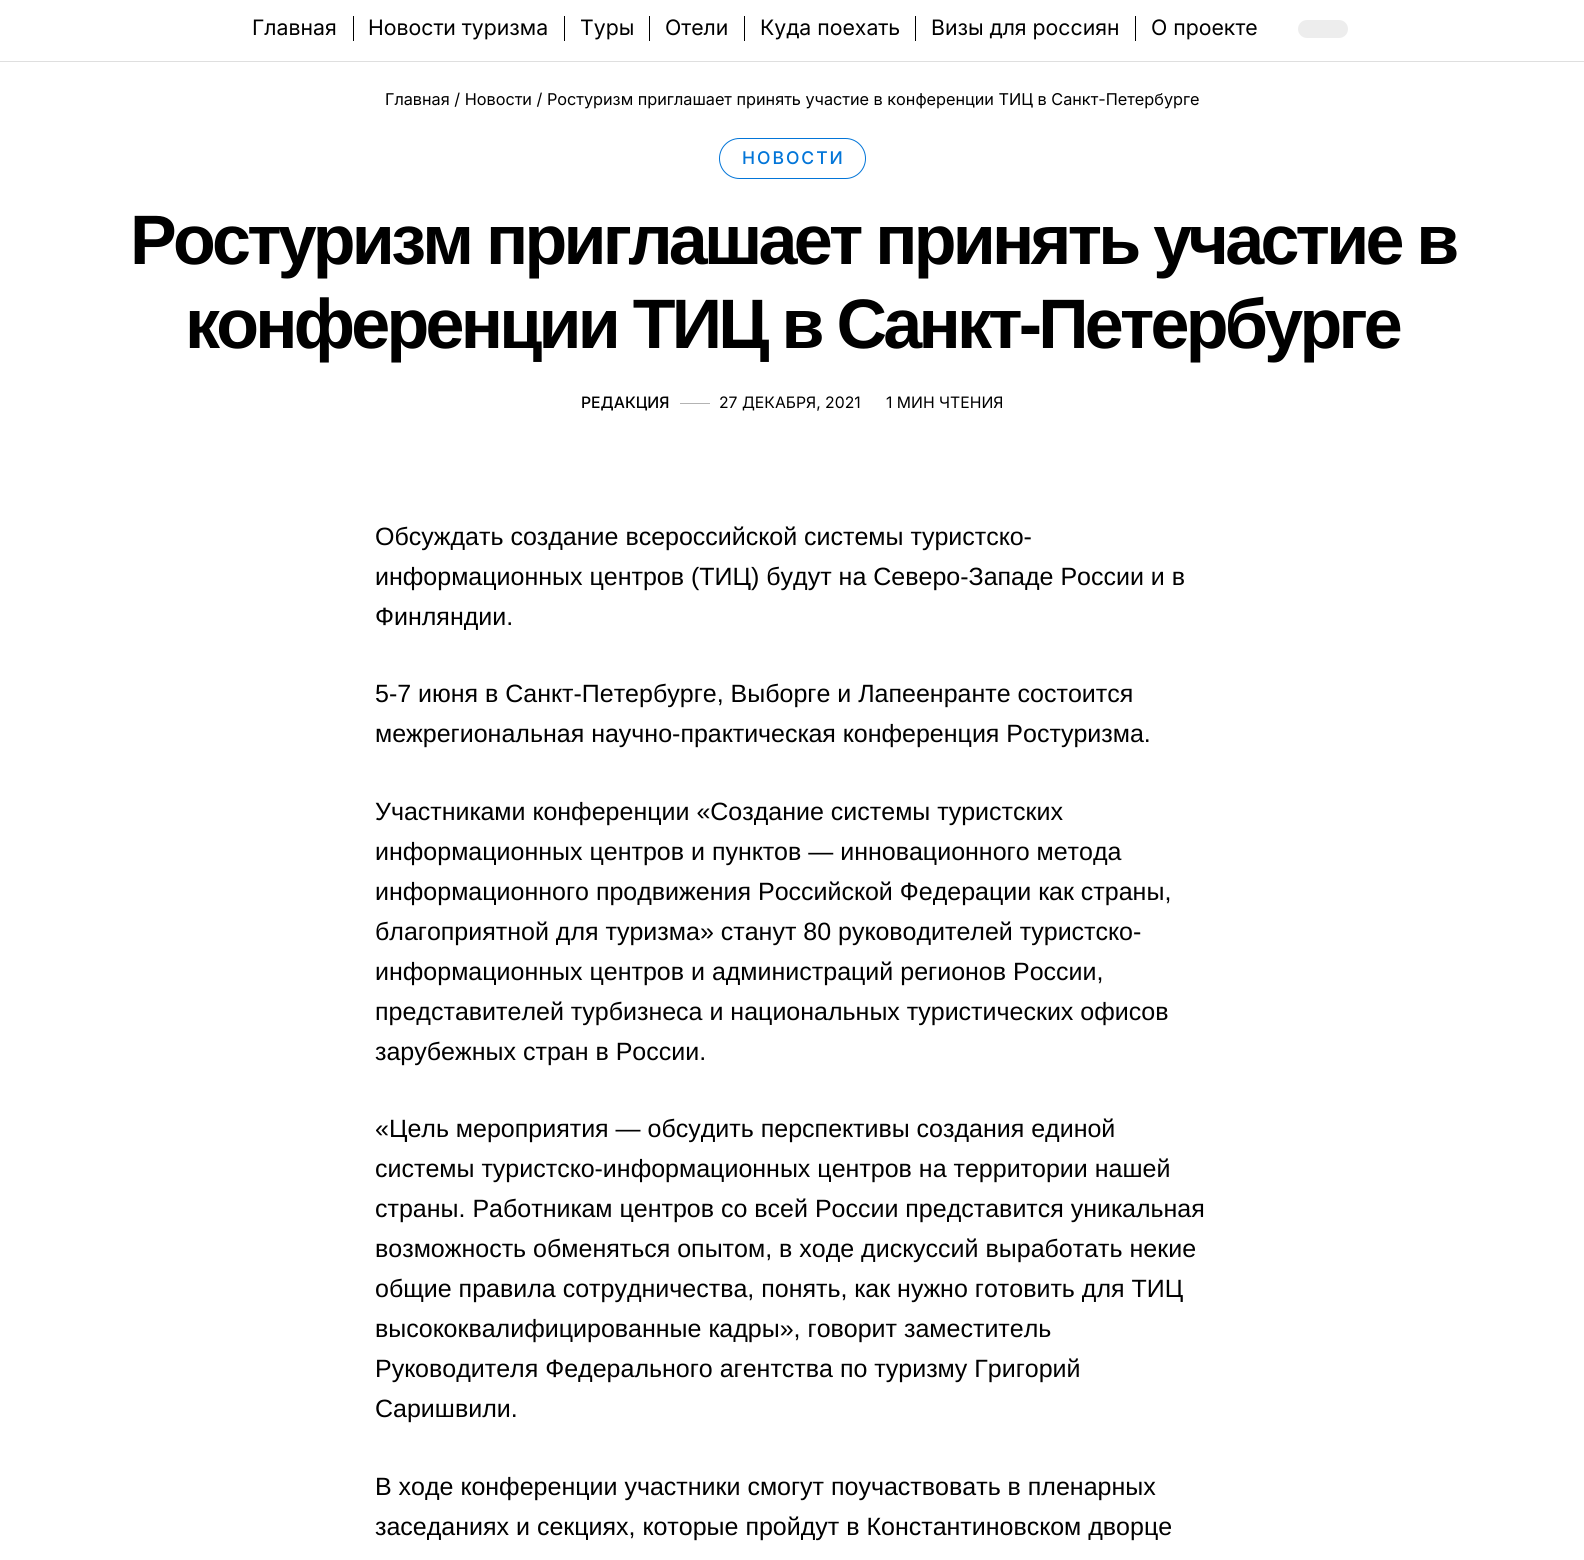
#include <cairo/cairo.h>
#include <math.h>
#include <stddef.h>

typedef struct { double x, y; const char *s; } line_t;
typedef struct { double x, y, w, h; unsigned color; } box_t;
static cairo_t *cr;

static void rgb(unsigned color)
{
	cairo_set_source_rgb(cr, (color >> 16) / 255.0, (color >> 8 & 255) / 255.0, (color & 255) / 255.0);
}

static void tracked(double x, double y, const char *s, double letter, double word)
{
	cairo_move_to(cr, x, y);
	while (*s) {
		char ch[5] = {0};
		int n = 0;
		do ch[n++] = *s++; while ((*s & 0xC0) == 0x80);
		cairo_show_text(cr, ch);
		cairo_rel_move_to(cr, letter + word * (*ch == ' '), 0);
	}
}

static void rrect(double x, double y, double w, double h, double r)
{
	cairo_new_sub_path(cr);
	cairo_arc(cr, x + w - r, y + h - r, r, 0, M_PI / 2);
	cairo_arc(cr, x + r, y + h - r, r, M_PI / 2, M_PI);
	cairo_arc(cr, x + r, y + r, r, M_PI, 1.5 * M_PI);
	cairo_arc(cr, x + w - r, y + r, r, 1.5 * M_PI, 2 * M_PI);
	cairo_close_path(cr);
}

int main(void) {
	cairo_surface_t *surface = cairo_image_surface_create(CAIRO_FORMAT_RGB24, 1584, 1560);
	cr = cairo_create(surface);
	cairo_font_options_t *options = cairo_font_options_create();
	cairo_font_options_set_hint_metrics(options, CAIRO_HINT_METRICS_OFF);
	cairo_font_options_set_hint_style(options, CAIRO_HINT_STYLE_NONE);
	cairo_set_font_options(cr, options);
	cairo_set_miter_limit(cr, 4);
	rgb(0xffffff);
	cairo_paint(cr);
	{
		static const box_t items[] = {
			{0, 61, 1584, 1, 0xdfdfdf},
			{353, 16, 1, 25, 0x000000},
			{564, 16, 1, 25, 0x000000},
			{649, 16, 1, 25, 0x000000},
			{744, 16, 1, 25, 0x000000},
			{915, 16, 1, 25, 0x000000},
			{1135, 16, 1, 25, 0x000000},
		};
		for (size_t i = 0; i < sizeof items / sizeof *items; i++) {
			rgb(items[i].color);
			cairo_rectangle(cr, items[i].x, items[i].y, items[i].w, items[i].h);
			cairo_fill(cr);
		}
	}
	rgb(0xededed);
	rrect(1298, 20, 50, 18, 9);
	cairo_fill(cr);
	rrect(719.5, 138.5, 146, 40, 20);
	rgb(0x0275d8);
	cairo_set_line_width(cr, 1);
	cairo_stroke(cr);
	rgb(0xb3b3b3);
	cairo_rectangle(cr, 680, 403, 30, 1);
	cairo_fill(cr);
	cairo_select_font_face(cr, "Inter", CAIRO_FONT_SLANT_NORMAL, CAIRO_FONT_WEIGHT_NORMAL);
	cairo_set_font_size(cr, 21.25);
	rgb(0x000000);
	{
		static const line_t items[] = {
			{252, 35, "Главная"},
			{368, 35, "Новости туризма"},
			{580, 35, "Туры"},
			{665, 35, "Отели"},
			{760, 35, "Куда поехать"},
			{931, 35, "Визы для россиян"},
			{1151, 35, "О проекте"},
		};
		for (size_t i = 0; i < sizeof items / sizeof *items; i++) {
			cairo_move_to(cr, items[i].x, items[i].y);
			cairo_show_text(cr, items[i].s);
		}
	}
	cairo_set_font_size(cr, 16.25);
	cairo_move_to(cr, 385, 105);
	cairo_show_text(cr, "Главная / Новости / Ростуризм приглашает принять участие в конференции ТИЦ в Санкт-Петербурге");
	cairo_select_font_face(cr, "Inter Medium", CAIRO_FONT_SLANT_NORMAL, CAIRO_FONT_WEIGHT_NORMAL);
	cairo_set_font_size(cr, 17.5);
	rgb(0x0275d8);
	tracked(742, 164, "НОВОСТИ", 2, 0);
	cairo_select_font_face(cr, "Liberation Sans", CAIRO_FONT_SLANT_NORMAL, CAIRO_FONT_WEIGHT_BOLD);
	cairo_set_font_size(cr, 70);
	rgb(0x000000);
	tracked(130, 264, "Ростуризм приглашает принять участие в", -3.75, 0);
	tracked(185, 348, "конференции ТИЦ в Санкт-Петербурге", -3.75, 0);
	cairo_select_font_face(cr, "Inter Medium", CAIRO_FONT_SLANT_NORMAL, CAIRO_FONT_WEIGHT_NORMAL);
	cairo_set_font_size(cr, 15.75);
	cairo_move_to(cr, 581, 408);
	cairo_show_text(cr, "РЕДАКЦИЯ");
	cairo_select_font_face(cr, "Inter", CAIRO_FONT_SLANT_NORMAL, CAIRO_FONT_WEIGHT_NORMAL);
	cairo_move_to(cr, 719, 408);
	cairo_show_text(cr, "27 ДЕКАБРЯ, 2021");
	cairo_move_to(cr, 886, 408);
	cairo_show_text(cr, "1 МИН ЧТЕНИЯ");
	cairo_select_font_face(cr, "Liberation Sans", CAIRO_FONT_SLANT_NORMAL, CAIRO_FONT_WEIGHT_NORMAL);
	cairo_set_font_size(cr, 25);
	{
		static const line_t items[] = {
			{375, 545, "Обсуждать создание всероссийской системы туристско-"},
			{375, 585, "информационных центров (ТИЦ) будут на Северо-Западе России и в"},
			{375, 625, "Финляндии."},
			{375, 702, "5-7 июня в Санкт-Петербурге, Выборге и Лапеенранте состоится"},
			{375, 742, "межрегиональная научно-практическая конференция Ростуризма."},
			{375, 820, "Участниками конференции «Создание системы туристских"},
			{375, 860, "информационных центров и пунктов — инновационного метода"},
			{375, 900, "информационного продвижения Российской Федерации как страны,"},
			{375, 940, "благоприятной для туризма» станут 80 руководителей туристско-"},
			{375, 980, "информационных центров и администраций регионов России,"},
			{375, 1020, "представителей турбизнеса и национальных туристических офисов"},
			{375, 1060, "зарубежных стран в России."},
			{375, 1137, "«Цель мероприятия — обсудить перспективы создания единой"},
			{375, 1177, "системы туристско-информационных центров на территории нашей"},
			{375, 1217, "страны. Работникам центров со всей России представится уникальная"},
			{375, 1257, "возможность обменяться опытом, в ходе дискуссий выработать некие"},
			{375, 1297, "общие правила сотрудничества, понять, как нужно готовить для ТИЦ"},
			{375, 1337, "высококвалифицированные кадры», говорит заместитель"},
			{375, 1377, "Руководителя Федерального агентства по туризму Григорий"},
			{375, 1417, "Саришвили."},
			{375, 1495, "В ходе конференции участники смогут поучаствовать в пленарных"},
			{375, 1535, "заседаниях и секциях, которые пройдут в Константиновском дворце"},
		};
		for (size_t i = 0; i < sizeof items / sizeof *items; i++) {
			cairo_move_to(cr, items[i].x, items[i].y);
			cairo_show_text(cr, items[i].s);
		}
	}
	cairo_surface_write_to_png(surface, "page.png");
	cairo_font_options_destroy(options);
	cairo_destroy(cr);
	cairo_surface_destroy(surface);
	return 0;
}
